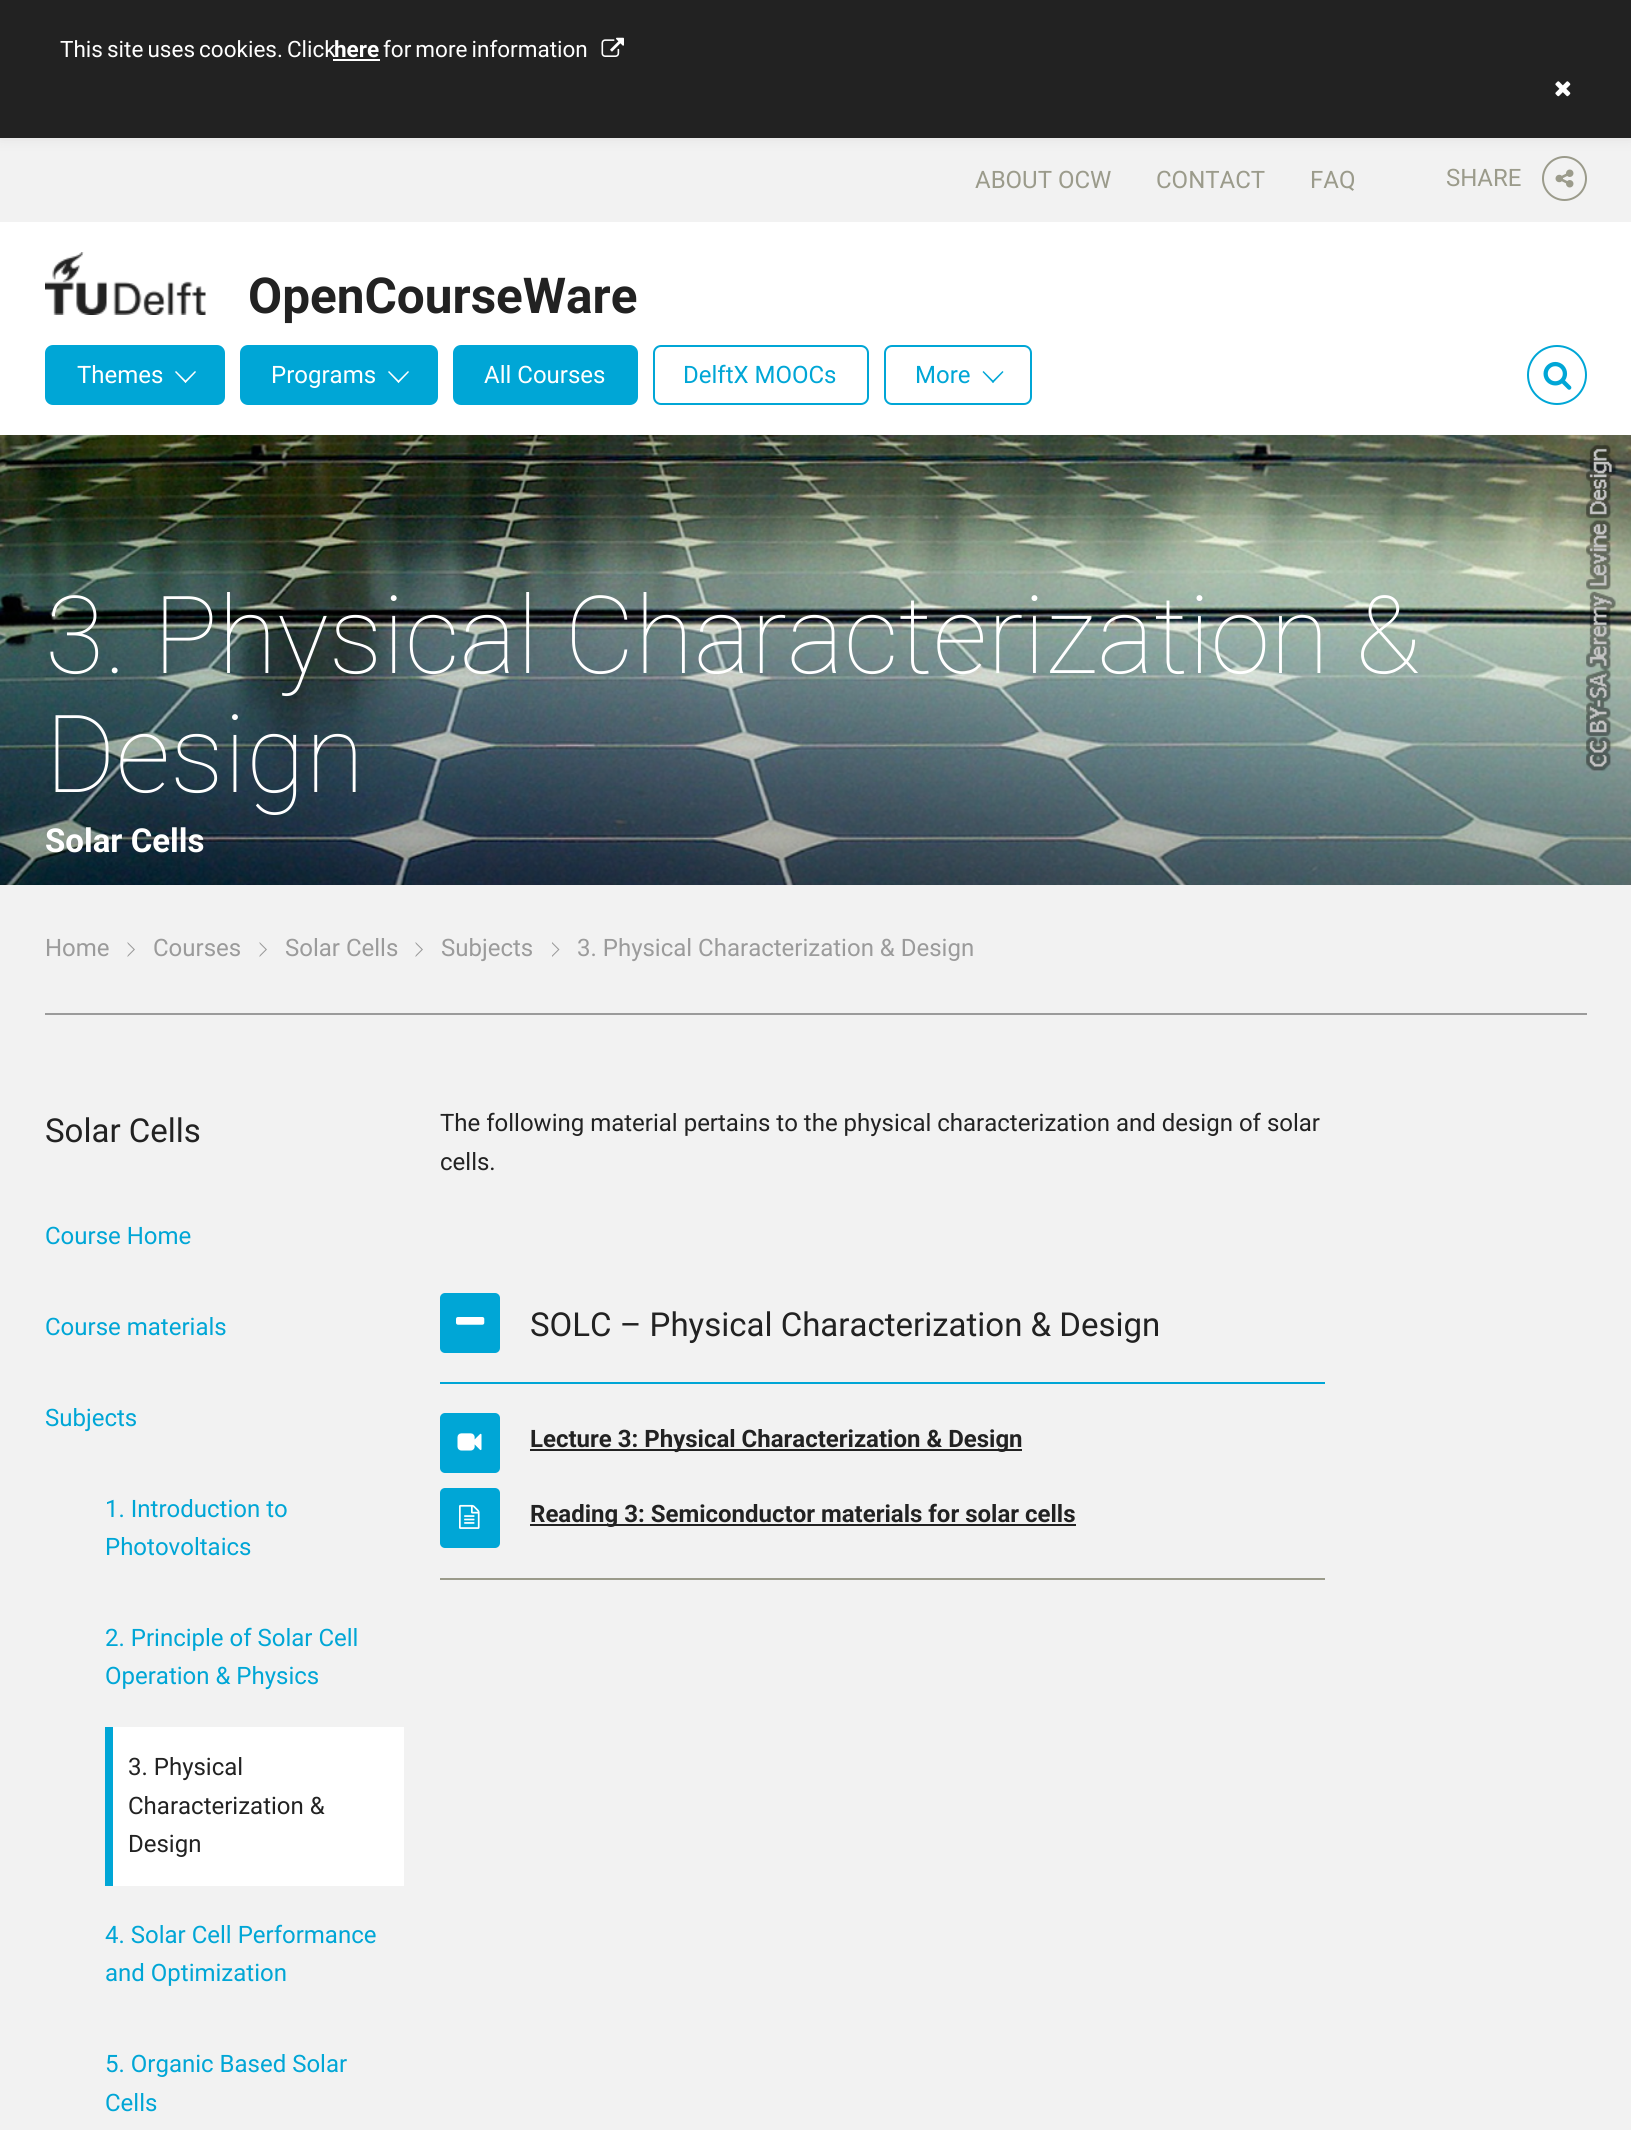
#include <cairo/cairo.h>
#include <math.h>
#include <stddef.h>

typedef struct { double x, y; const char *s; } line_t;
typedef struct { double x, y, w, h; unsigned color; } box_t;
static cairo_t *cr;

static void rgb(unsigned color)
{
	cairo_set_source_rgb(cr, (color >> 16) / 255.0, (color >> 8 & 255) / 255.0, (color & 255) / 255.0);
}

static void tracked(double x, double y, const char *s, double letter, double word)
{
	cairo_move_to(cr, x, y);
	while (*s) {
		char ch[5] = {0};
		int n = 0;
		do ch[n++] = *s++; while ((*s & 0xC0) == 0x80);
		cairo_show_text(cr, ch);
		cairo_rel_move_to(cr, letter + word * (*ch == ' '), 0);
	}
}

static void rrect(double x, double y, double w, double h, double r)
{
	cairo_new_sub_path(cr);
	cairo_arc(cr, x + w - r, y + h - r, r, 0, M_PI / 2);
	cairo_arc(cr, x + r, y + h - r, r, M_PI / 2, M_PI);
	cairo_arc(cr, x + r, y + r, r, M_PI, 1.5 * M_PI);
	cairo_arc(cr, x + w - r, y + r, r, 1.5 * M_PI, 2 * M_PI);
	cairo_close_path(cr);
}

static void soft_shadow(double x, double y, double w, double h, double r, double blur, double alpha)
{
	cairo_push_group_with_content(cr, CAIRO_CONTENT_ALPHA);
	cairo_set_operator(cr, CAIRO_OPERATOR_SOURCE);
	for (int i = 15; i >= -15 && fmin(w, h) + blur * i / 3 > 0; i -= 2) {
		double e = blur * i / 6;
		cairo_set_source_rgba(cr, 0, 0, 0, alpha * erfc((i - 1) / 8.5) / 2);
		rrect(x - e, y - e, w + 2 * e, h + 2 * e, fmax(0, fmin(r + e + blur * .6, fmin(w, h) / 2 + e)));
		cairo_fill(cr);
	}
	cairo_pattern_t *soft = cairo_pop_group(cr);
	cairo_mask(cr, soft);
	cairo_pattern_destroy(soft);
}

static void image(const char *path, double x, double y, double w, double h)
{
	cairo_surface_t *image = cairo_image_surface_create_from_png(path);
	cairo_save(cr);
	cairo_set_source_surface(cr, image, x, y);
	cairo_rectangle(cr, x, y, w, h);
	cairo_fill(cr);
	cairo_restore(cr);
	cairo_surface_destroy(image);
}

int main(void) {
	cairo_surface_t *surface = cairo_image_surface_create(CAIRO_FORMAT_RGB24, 1631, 2130);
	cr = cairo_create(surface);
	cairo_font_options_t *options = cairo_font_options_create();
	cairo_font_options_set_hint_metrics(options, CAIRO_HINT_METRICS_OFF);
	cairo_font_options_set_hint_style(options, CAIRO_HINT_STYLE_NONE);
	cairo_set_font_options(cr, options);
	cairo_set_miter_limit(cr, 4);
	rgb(0xf2f2f2);
	cairo_paint(cr);
	cairo_arc(cr, 1564.5, 178.5, 21.5, 0, 2 * M_PI);
	rgb(0x9b9b8b);
	cairo_stroke(cr);
	rgb(0xacabab);
	soft_shadow(0, -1, 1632, 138, 0, 7.5, 0.3);
	rgb(0x222222);
	cairo_rectangle(cr, 0, 0, 1631, 138);
	cairo_fill(cr);
	rgb(0xffffff);
	cairo_rectangle(cr, 333, 59, 47, 2);
	cairo_fill(cr);
	image("img/1.png", 601, 37, 23, 20);
	image("img/2.png", 1555, 81, 16, 16);
	image("img/3.png", 1555, 169, 19, 19);
	cairo_rectangle(cr, 0, 222, 1631, 213);
	cairo_fill(cr);
	image("img/4.png", 45, 252, 161, 63);
	rgb(0x00a6d6);
	rrect(46, 346, 178, 58, 7);
	cairo_fill_preserve(cr);
	cairo_stroke(cr);
	rgb(0xffffff);
	cairo_new_path(cr);
	cairo_move_to(cr, 185.5, 383);
	cairo_line_to(cr, 175, 372);
	cairo_line_to(cr, 176, 371);
	cairo_line_to(cr, 186.5, 381.5);
	cairo_close_path(cr);
	cairo_fill(cr);
	cairo_new_path(cr);
	cairo_move_to(cr, 185.5, 383);
	cairo_line_to(cr, 184.5, 381.5);
	cairo_line_to(cr, 195, 371);
	cairo_line_to(cr, 196, 372);
	cairo_close_path(cr);
	cairo_fill(cr);
	rgb(0x00a6d6);
	rrect(241, 346, 196, 58, 7);
	cairo_fill_preserve(cr);
	cairo_stroke(cr);
	rgb(0xffffff);
	cairo_new_path(cr);
	cairo_move_to(cr, 398.5, 383);
	cairo_line_to(cr, 388, 372);
	cairo_line_to(cr, 389, 371);
	cairo_line_to(cr, 399.5, 381.5);
	cairo_close_path(cr);
	cairo_fill(cr);
	cairo_new_path(cr);
	cairo_move_to(cr, 398.5, 383);
	cairo_line_to(cr, 397.5, 381.5);
	cairo_line_to(cr, 408, 371);
	cairo_line_to(cr, 409, 372);
	cairo_close_path(cr);
	cairo_fill(cr);
	rgb(0x00a6d6);
	rrect(454, 346, 183, 58, 7);
	cairo_fill_preserve(cr);
	cairo_stroke(cr);
	rrect(654, 346, 214, 58, 7);
	cairo_stroke(cr);
	rrect(885, 346, 146, 58, 7);
	cairo_stroke(cr);
	cairo_new_path(cr);
	cairo_move_to(cr, 993, 383);
	cairo_line_to(cr, 982.5, 372);
	cairo_line_to(cr, 983.5, 371);
	cairo_line_to(cr, 994, 381.5);
	cairo_close_path(cr);
	cairo_fill(cr);
	cairo_new_path(cr);
	cairo_move_to(cr, 993, 383);
	cairo_line_to(cr, 992, 381.5);
	cairo_line_to(cr, 1002.5, 371);
	cairo_line_to(cr, 1003.5, 372);
	cairo_close_path(cr);
	cairo_fill(cr);
	cairo_arc(cr, 1557, 375, 29, 0, 2 * M_PI);
	cairo_stroke(cr);
	image("img/5.png", 1543, 361, 29, 29);
	image("img/6.png", 0, 435, 1631, 450);
	rgb(0x9b9b9b);
	cairo_rectangle(cr, 45, 1013, 1542, 2);
	cairo_fill(cr);
	cairo_new_path(cr);
	cairo_move_to(cr, 127.5, 957);
	cairo_line_to(cr, 127.5, 942);
	cairo_line_to(cr, 135, 949.5);
	cairo_close_path(cr);
	cairo_fill(cr);
	rgb(0xf2f2f2);
	cairo_new_path(cr);
	cairo_move_to(cr, 126, 957);
	cairo_line_to(cr, 126, 942);
	cairo_line_to(cr, 133.5, 949.5);
	cairo_close_path(cr);
	cairo_fill(cr);
	rgb(0x9b9b9b);
	cairo_new_path(cr);
	cairo_move_to(cr, 259.5, 957);
	cairo_line_to(cr, 259.5, 942);
	cairo_line_to(cr, 267, 949.5);
	cairo_close_path(cr);
	cairo_fill(cr);
	rgb(0xf2f2f2);
	cairo_new_path(cr);
	cairo_move_to(cr, 258, 957);
	cairo_line_to(cr, 258, 942);
	cairo_line_to(cr, 265.5, 949.5);
	cairo_close_path(cr);
	cairo_fill(cr);
	rgb(0x9b9b9b);
	cairo_new_path(cr);
	cairo_move_to(cr, 415.5, 957);
	cairo_line_to(cr, 415.5, 942);
	cairo_line_to(cr, 423, 949.5);
	cairo_close_path(cr);
	cairo_fill(cr);
	rgb(0xf2f2f2);
	cairo_new_path(cr);
	cairo_move_to(cr, 414, 957);
	cairo_line_to(cr, 414, 942);
	cairo_line_to(cr, 421.5, 949.5);
	cairo_close_path(cr);
	cairo_fill(cr);
	rgb(0x9b9b9b);
	cairo_new_path(cr);
	cairo_move_to(cr, 552, 957);
	cairo_line_to(cr, 552, 942);
	cairo_line_to(cr, 559.5, 949.5);
	cairo_close_path(cr);
	cairo_fill(cr);
	rgb(0xf2f2f2);
	cairo_new_path(cr);
	cairo_move_to(cr, 550.5, 957);
	cairo_line_to(cr, 550.5, 942);
	cairo_line_to(cr, 558, 949.5);
	cairo_close_path(cr);
	cairo_fill(cr);
	{
		static const box_t items[] = {
			{105, 1727, 8, 159, 0x00a6d6},
			{113, 1727, 291, 159, 0xffffff},
			{440, 1382, 885, 2, 0x00a6d6},
		};
		for (size_t i = 0; i < sizeof items / sizeof *items; i++) {
			rgb(items[i].color);
			cairo_rectangle(cr, items[i].x, items[i].y, items[i].w, items[i].h);
			cairo_fill(cr);
		}
	}
	rrect(440, 1293, 60, 60, 5);
	cairo_fill(cr);
	image("img/7.png", 456, 1317, 29, 8);
	rgb(0x9b9b8b);
	cairo_rectangle(cr, 440, 1578, 885, 2);
	cairo_fill(cr);
	rgb(0x00a6d6);
	rrect(440, 1413, 60, 60, 5);
	cairo_fill(cr);
	image("img/8.png", 457, 1433, 25, 18);
	rgb(0x222222);
	cairo_rectangle(cr, 530, 1449, 492, 2);
	cairo_fill(cr);
	rgb(0x00a6d6);
	rrect(440, 1488, 60, 60, 5);
	cairo_fill(cr);
	image("img/9.png", 459, 1504, 21, 25);
	rgb(0x222222);
	cairo_rectangle(cr, 530, 1524, 546, 2);
	cairo_fill(cr);
	cairo_select_font_face(cr, "Roboto", CAIRO_FONT_SLANT_NORMAL, CAIRO_FONT_WEIGHT_NORMAL);
	cairo_set_font_size(cr, 22.5);
	rgb(0xffffff);
	tracked(60, 57, "This site uses cookies. Click", 0, -1.5);
	cairo_select_font_face(cr, "Roboto", CAIRO_FONT_SLANT_NORMAL, CAIRO_FONT_WEIGHT_BOLD);
	cairo_move_to(cr, 334, 57);
	cairo_show_text(cr, "here");
	cairo_select_font_face(cr, "Roboto", CAIRO_FONT_SLANT_NORMAL, CAIRO_FONT_WEIGHT_NORMAL);
	tracked(383, 57, "for more information", 0, -1.5);
	cairo_set_font_size(cr, 24);
	rgb(0x9b9b8b);
	{
		static const line_t items[] = {
			{975, 188, "ABOUT OCW"},
			{1156, 188, "CONTACT"},
			{1310, 188, "FAQ"},
			{1446, 186, "SHARE"},
		};
		for (size_t i = 0; i < sizeof items / sizeof *items; i++) {
			cairo_move_to(cr, items[i].x, items[i].y);
			cairo_show_text(cr, items[i].s);
		}
	}
	cairo_select_font_face(cr, "Roboto", CAIRO_FONT_SLANT_NORMAL, CAIRO_FONT_WEIGHT_BOLD);
	cairo_set_font_size(cr, 49.5);
	rgb(0x222222);
	cairo_move_to(cr, 248, 313);
	cairo_show_text(cr, "OpenCourseWare");
	cairo_select_font_face(cr, "Roboto", CAIRO_FONT_SLANT_NORMAL, CAIRO_FONT_WEIGHT_NORMAL);
	cairo_set_font_size(cr, 24);
	rgb(0xffffff);
	{
		static const line_t items[] = {
			{77, 383, "Themes"},
			{271, 383, "Programs"},
			{484, 383, "All Courses"},
		};
		for (size_t i = 0; i < sizeof items / sizeof *items; i++) {
			cairo_move_to(cr, items[i].x, items[i].y);
			cairo_show_text(cr, items[i].s);
		}
	}
	rgb(0x00a6d6);
	cairo_move_to(cr, 683, 383);
	cairo_show_text(cr, "DelftX MOOCs");
	cairo_move_to(cr, 915, 383);
	cairo_show_text(cr, "More");
	cairo_select_font_face(cr, "Roboto Thin", CAIRO_FONT_SLANT_NORMAL, CAIRO_FONT_WEIGHT_NORMAL);
	cairo_set_font_size(cr, 108);
	rgb(0xffffff);
	cairo_move_to(cr, 45, 673);
	cairo_show_text(cr, "3. Physical Characterization &");
	cairo_move_to(cr, 45, 792);
	cairo_show_text(cr, "Design");
	cairo_select_font_face(cr, "Roboto", CAIRO_FONT_SLANT_NORMAL, CAIRO_FONT_WEIGHT_BOLD);
	cairo_set_font_size(cr, 33);
	cairo_move_to(cr, 45, 852);
	cairo_show_text(cr, "Solar Cells");
	cairo_select_font_face(cr, "Roboto", CAIRO_FONT_SLANT_NORMAL, CAIRO_FONT_WEIGHT_NORMAL);
	cairo_set_font_size(cr, 24);
	rgb(0x9b9b9b);
	{
		static const line_t items[] = {
			{45, 956, "Home"},
			{153, 956, "Courses"},
			{285, 956, "Solar Cells"},
			{441, 956, "Subjects"},
			{577, 956, "3. Physical Characterization & Design"},
		};
		for (size_t i = 0; i < sizeof items / sizeof *items; i++) {
			cairo_move_to(cr, items[i].x, items[i].y);
			cairo_show_text(cr, items[i].s);
		}
	}
	cairo_set_font_size(cr, 33);
	rgb(0x222222);
	cairo_move_to(cr, 45, 1142);
	cairo_show_text(cr, "Solar Cells");
	cairo_set_font_size(cr, 24);
	rgb(0x00a6d6);
	{
		static const line_t items[] = {
			{45, 1244, "Course Home"},
			{45, 1335, "Course materials"},
			{45, 1426, "Subjects"},
			{105, 1517, "1. Introduction to"},
			{105, 1555, "Photovoltaics"},
			{105, 1646, "2. Principle of Solar Cell"},
			{105, 1684, "Operation & Physics"},
		};
		for (size_t i = 0; i < sizeof items / sizeof *items; i++) {
			cairo_move_to(cr, items[i].x, items[i].y);
			cairo_show_text(cr, items[i].s);
		}
	}
	rgb(0x222222);
	{
		static const line_t items[] = {
			{128, 1775, "3. Physical"},
			{128, 1814, "Characterization &"},
			{128, 1852, "Design"},
		};
		for (size_t i = 0; i < sizeof items / sizeof *items; i++) {
			cairo_move_to(cr, items[i].x, items[i].y);
			cairo_show_text(cr, items[i].s);
		}
	}
	rgb(0x00a6d6);
	{
		static const line_t items[] = {
			{105, 1943, "4. Solar Cell Performance"},
			{105, 1981, "and Optimization"},
			{105, 2072, "5. Organic Based Solar"},
			{105, 2111, "Cells"},
		};
		for (size_t i = 0; i < sizeof items / sizeof *items; i++) {
			cairo_move_to(cr, items[i].x, items[i].y);
			cairo_show_text(cr, items[i].s);
		}
	}
	rgb(0x222222);
	cairo_move_to(cr, 440, 1131);
	cairo_show_text(cr, "The following material pertains to the physical characterization and design of solar");
	cairo_move_to(cr, 440, 1170);
	cairo_show_text(cr, "cells.");
	cairo_set_font_size(cr, 33);
	cairo_move_to(cr, 530, 1336);
	cairo_show_text(cr, "SOLC – Physical Characterization & Design");
	cairo_select_font_face(cr, "Roboto", CAIRO_FONT_SLANT_NORMAL, CAIRO_FONT_WEIGHT_BOLD);
	cairo_set_font_size(cr, 24);
	cairo_move_to(cr, 530, 1447);
	cairo_show_text(cr, "Lecture 3: Physical Characterization & Design");
	cairo_move_to(cr, 530, 1522);
	cairo_show_text(cr, "Reading 3: Semiconductor materials for solar cells");
	cairo_surface_write_to_png(surface, "page.png");
	cairo_font_options_destroy(options);
	cairo_destroy(cr);
	cairo_surface_destroy(surface);
	return 0;
}
